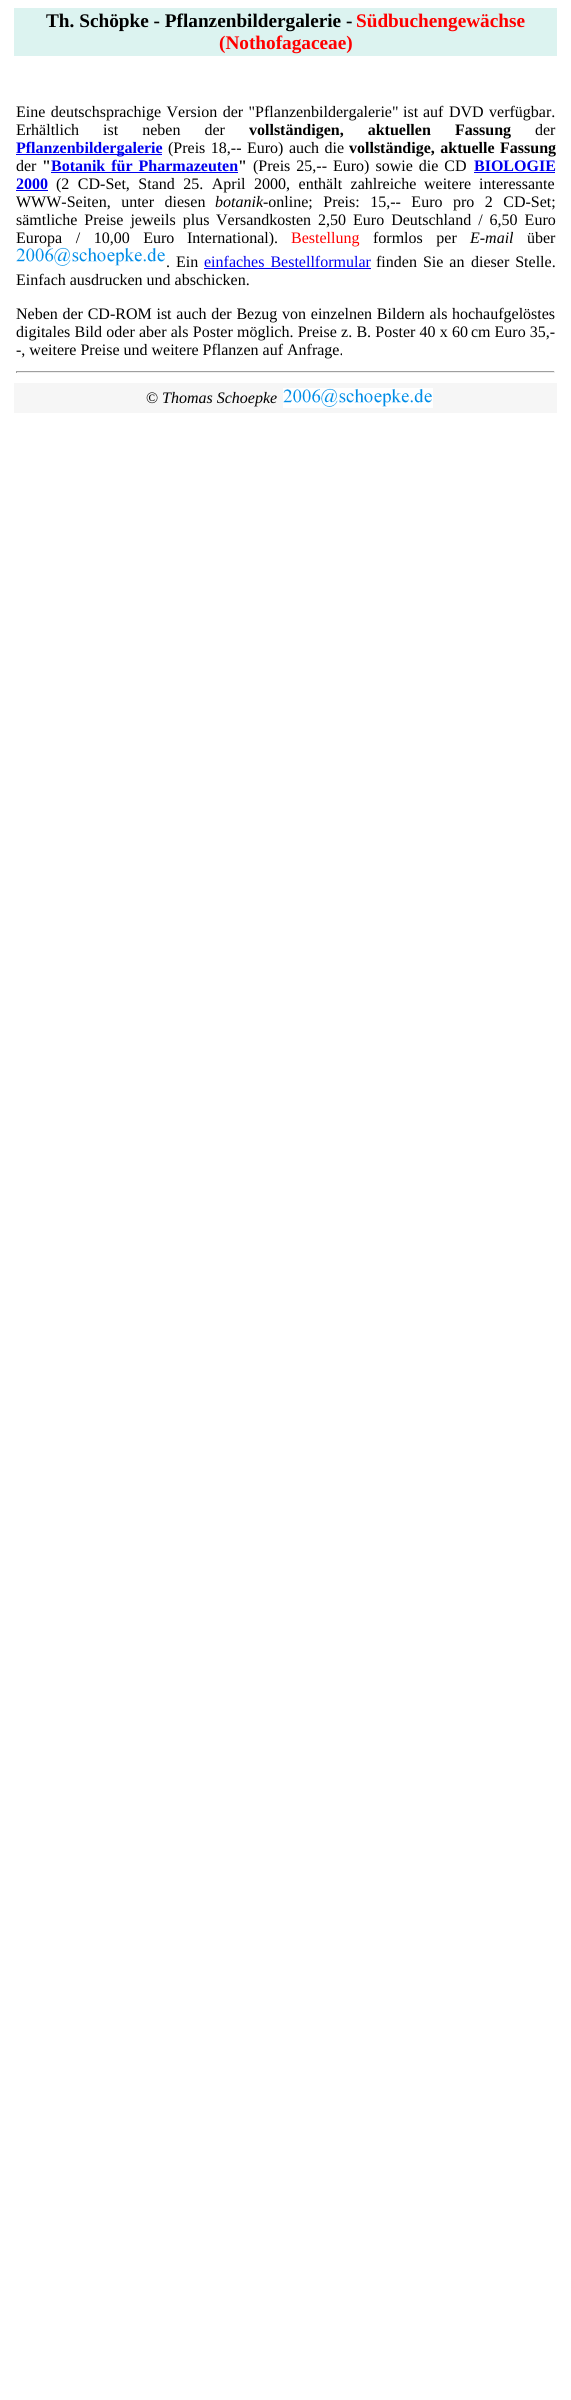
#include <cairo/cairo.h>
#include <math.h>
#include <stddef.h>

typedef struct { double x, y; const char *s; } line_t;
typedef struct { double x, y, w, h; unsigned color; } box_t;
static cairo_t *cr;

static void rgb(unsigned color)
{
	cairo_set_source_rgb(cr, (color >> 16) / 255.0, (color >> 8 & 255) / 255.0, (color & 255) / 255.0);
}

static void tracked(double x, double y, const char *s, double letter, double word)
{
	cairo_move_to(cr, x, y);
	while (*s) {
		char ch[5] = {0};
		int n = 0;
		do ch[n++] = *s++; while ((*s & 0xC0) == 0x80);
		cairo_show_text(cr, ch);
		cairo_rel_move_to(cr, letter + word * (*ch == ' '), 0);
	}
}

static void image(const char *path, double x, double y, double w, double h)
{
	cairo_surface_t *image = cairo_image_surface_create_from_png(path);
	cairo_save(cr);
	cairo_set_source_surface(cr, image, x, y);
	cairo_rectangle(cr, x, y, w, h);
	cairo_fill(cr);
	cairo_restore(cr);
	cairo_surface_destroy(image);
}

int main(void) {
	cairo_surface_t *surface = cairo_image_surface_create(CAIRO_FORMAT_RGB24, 571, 2400);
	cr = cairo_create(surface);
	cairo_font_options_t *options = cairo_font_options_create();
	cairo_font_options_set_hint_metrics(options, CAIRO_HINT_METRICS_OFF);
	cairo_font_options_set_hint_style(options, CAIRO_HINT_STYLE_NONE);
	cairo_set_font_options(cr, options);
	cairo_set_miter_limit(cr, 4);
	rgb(0xffffff);
	cairo_paint(cr);
	{
		static const box_t items[] = {
			{14, 8, 543, 48, 0xdcf3f0},
			{16, 154, 146, 1, 0x0000ee},
			{51, 172, 187, 1, 0x0000ee},
			{474, 172, 81, 1, 0x0000ee},
			{16, 190, 32, 1, 0x0000ee},
		};
		for (size_t i = 0; i < sizeof items / sizeof *items; i++) {
			rgb(items[i].color);
			cairo_rectangle(cr, items[i].x, items[i].y, items[i].w, items[i].h);
			cairo_fill(cr);
		}
	}
	image("img/1.png", 16, 247, 149, 19);
	{
		static const box_t items[] = {
			{204, 268, 167, 1, 0x0000ee},
			{16, 371, 539, 1, 0x9f9f9f},
			{554, 371, 1, 2, 0xeeeeee},
			{16, 372, 539, 1, 0xeeeeee},
			{16, 371, 1, 2, 0x9f9f9f},
			{14, 383, 543, 30, 0xf6f6f6},
		};
		for (size_t i = 0; i < sizeof items / sizeof *items; i++) {
			rgb(items[i].color);
			cairo_rectangle(cr, items[i].x, items[i].y, items[i].w, items[i].h);
			cairo_fill(cr);
		}
	}
	image("img/2.png", 283, 388, 150, 20);
	cairo_select_font_face(cr, "Liberation Serif", CAIRO_FONT_SLANT_NORMAL, CAIRO_FONT_WEIGHT_BOLD);
	cairo_set_font_size(cr, 19.25);
	rgb(0x000000);
	cairo_move_to(cr, 46, 27);
	cairo_show_text(cr, "Th. Schöpke - Pflanzenbildergalerie -");
	rgb(0xff0000);
	cairo_move_to(cr, 356, 27);
	cairo_show_text(cr, "Südbuchengewächse");
	cairo_move_to(cr, 219, 49);
	cairo_show_text(cr, "(Nothofagaceae)");
	cairo_select_font_face(cr, "Liberation Serif", CAIRO_FONT_SLANT_NORMAL, CAIRO_FONT_WEIGHT_NORMAL);
	cairo_set_font_size(cr, 16);
	rgb(0x000000);
	tracked(16, 117, "Eine deutschsprachige Version der \"Pflanzenbildergalerie\"", 0, 1.5);
	cairo_move_to(cr, 403, 117);
	cairo_show_text(cr, "ist");
	tracked(423, 117, "auf DVD verfügbar.", 0, 1.5);
	tracked(16, 135, "Erhältlich ist neben der", 0, 20);
	cairo_select_font_face(cr, "Liberation Serif", CAIRO_FONT_SLANT_NORMAL, CAIRO_FONT_WEIGHT_BOLD);
	tracked(249, 135, "vollständigen, aktuellen", 0, 20);
	cairo_move_to(cr, 455, 135);
	cairo_show_text(cr, "Fassung");
	cairo_select_font_face(cr, "Liberation Serif", CAIRO_FONT_SLANT_NORMAL, CAIRO_FONT_WEIGHT_NORMAL);
	cairo_move_to(cr, 535, 135);
	cairo_show_text(cr, "der");
	cairo_select_font_face(cr, "Liberation Serif", CAIRO_FONT_SLANT_NORMAL, CAIRO_FONT_WEIGHT_BOLD);
	rgb(0x0000ee);
	cairo_move_to(cr, 16, 153);
	cairo_show_text(cr, "Pflanzenbildergalerie");
	cairo_select_font_face(cr, "Liberation Serif", CAIRO_FONT_SLANT_NORMAL, CAIRO_FONT_WEIGHT_NORMAL);
	rgb(0x000000);
	tracked(168, 153, "(Preis 18,-- Euro) auch die", 0, 1.5);
	cairo_select_font_face(cr, "Liberation Serif", CAIRO_FONT_SLANT_NORMAL, CAIRO_FONT_WEIGHT_BOLD);
	tracked(349, 153, "vollständige, aktuelle Fassung", 0, 1.5);
	cairo_select_font_face(cr, "Liberation Serif", CAIRO_FONT_SLANT_NORMAL, CAIRO_FONT_WEIGHT_NORMAL);
	cairo_move_to(cr, 16, 171);
	cairo_show_text(cr, "der");
	cairo_select_font_face(cr, "Liberation Serif", CAIRO_FONT_SLANT_NORMAL, CAIRO_FONT_WEIGHT_BOLD);
	cairo_move_to(cr, 42, 171);
	cairo_show_text(cr, "\"");
	rgb(0x0000ee);
	tracked(51, 171, "Botanik für Pharmazeuten", 0, 2);
	rgb(0x000000);
	cairo_move_to(cr, 238, 171);
	cairo_show_text(cr, "\"");
	cairo_select_font_face(cr, "Liberation Serif", CAIRO_FONT_SLANT_NORMAL, CAIRO_FONT_WEIGHT_NORMAL);
	tracked(253, 171, "(Preis 25,-- Euro) sowie die CD", 0, 2);
	cairo_select_font_face(cr, "Liberation Serif", CAIRO_FONT_SLANT_NORMAL, CAIRO_FONT_WEIGHT_BOLD);
	rgb(0x0000ee);
	cairo_move_to(cr, 474, 171);
	cairo_show_text(cr, "BIOLOGIE");
	cairo_move_to(cr, 16, 189);
	cairo_show_text(cr, "2000");
	cairo_select_font_face(cr, "Liberation Serif", CAIRO_FONT_SLANT_NORMAL, CAIRO_FONT_WEIGHT_NORMAL);
	rgb(0x000000);
	tracked(56, 189, "(2 CD-Set, Stand 25. April 2000, enthält zahlreiche", 0, 4.5);
	tracked(424, 189, "weitere interessante", 0, 4);
	tracked(16, 207, "WWW-Seiten, unter diesen", 0, 6.5);
	cairo_select_font_face(cr, "Liberation Serif", CAIRO_FONT_SLANT_ITALIC, CAIRO_FONT_WEIGHT_NORMAL);
	cairo_move_to(cr, 215, 207);
	cairo_show_text(cr, "botanik");
	cairo_select_font_face(cr, "Liberation Serif", CAIRO_FONT_SLANT_NORMAL, CAIRO_FONT_WEIGHT_NORMAL);
	tracked(263, 207, "-online; Preis: 15,-- Euro pro 2 CD-Set;", 0, 6.5);
	tracked(16, 225, "sämtliche Preise jeweils plus", 0, 3);
	tracked(216, 225, "Versandkosten 2,50 Euro Deutschland / 6,50 Euro", 0, 3);
	tracked(16, 243, "Europa / 10,00 Euro", 0, 9.5);
	cairo_move_to(cr, 187, 243);
	cairo_show_text(cr, "International).");
	rgb(0xff0000);
	cairo_move_to(cr, 291, 243);
	cairo_show_text(cr, "Bestellung");
	rgb(0x000000);
	tracked(373, 243, "formlos per", 0, 9.5);
	cairo_select_font_face(cr, "Liberation Serif", CAIRO_FONT_SLANT_ITALIC, CAIRO_FONT_WEIGHT_NORMAL);
	cairo_move_to(cr, 470, 243);
	cairo_show_text(cr, "E-mail");
	cairo_select_font_face(cr, "Liberation Serif", CAIRO_FONT_SLANT_NORMAL, CAIRO_FONT_WEIGHT_NORMAL);
	cairo_move_to(cr, 527, 243);
	cairo_show_text(cr, "über");
	tracked(166, 267, ". Ein", 0, 2);
	rgb(0x0000ee);
	tracked(204, 267, "einfaches Bestellformular", 0, 2);
	rgb(0x000000);
	tracked(376, 267, "finden Sie an", 0, 2);
	tracked(471, 267, "dieser Stelle.", 0, 2);
	cairo_move_to(cr, 16, 285);
	cairo_show_text(cr, "Einfach ausdrucken und abschicken.");
	tracked(16, 319, "Neben der CD-ROM ist auch der Bezug von einzelnen Bildern als", 0, 0.75);
	cairo_move_to(cr, 452, 319);
	cairo_show_text(cr, "hochaufgelöstes");
	tracked(16, 337, "digitales Bild oder aber als Poster möglich. Preise z. B. Poster 40 x 60", 0, 0.25);
	{
		static const line_t items[] = {
			{471, 337, "cm Euro 35,-"},
			{16, 355, "-, weitere Preise und weitere Pflanzen auf Anfrage."},
			{146, 403, "©"},
		};
		for (size_t i = 0; i < sizeof items / sizeof *items; i++) {
			cairo_move_to(cr, items[i].x, items[i].y);
			cairo_show_text(cr, items[i].s);
		}
	}
	cairo_select_font_face(cr, "Liberation Serif", CAIRO_FONT_SLANT_ITALIC, CAIRO_FONT_WEIGHT_NORMAL);
	cairo_move_to(cr, 162, 403);
	cairo_show_text(cr, "Thomas Schoepke");
	cairo_surface_write_to_png(surface, "page.png");
	cairo_font_options_destroy(options);
	cairo_destroy(cr);
	cairo_surface_destroy(surface);
	return 0;
}
